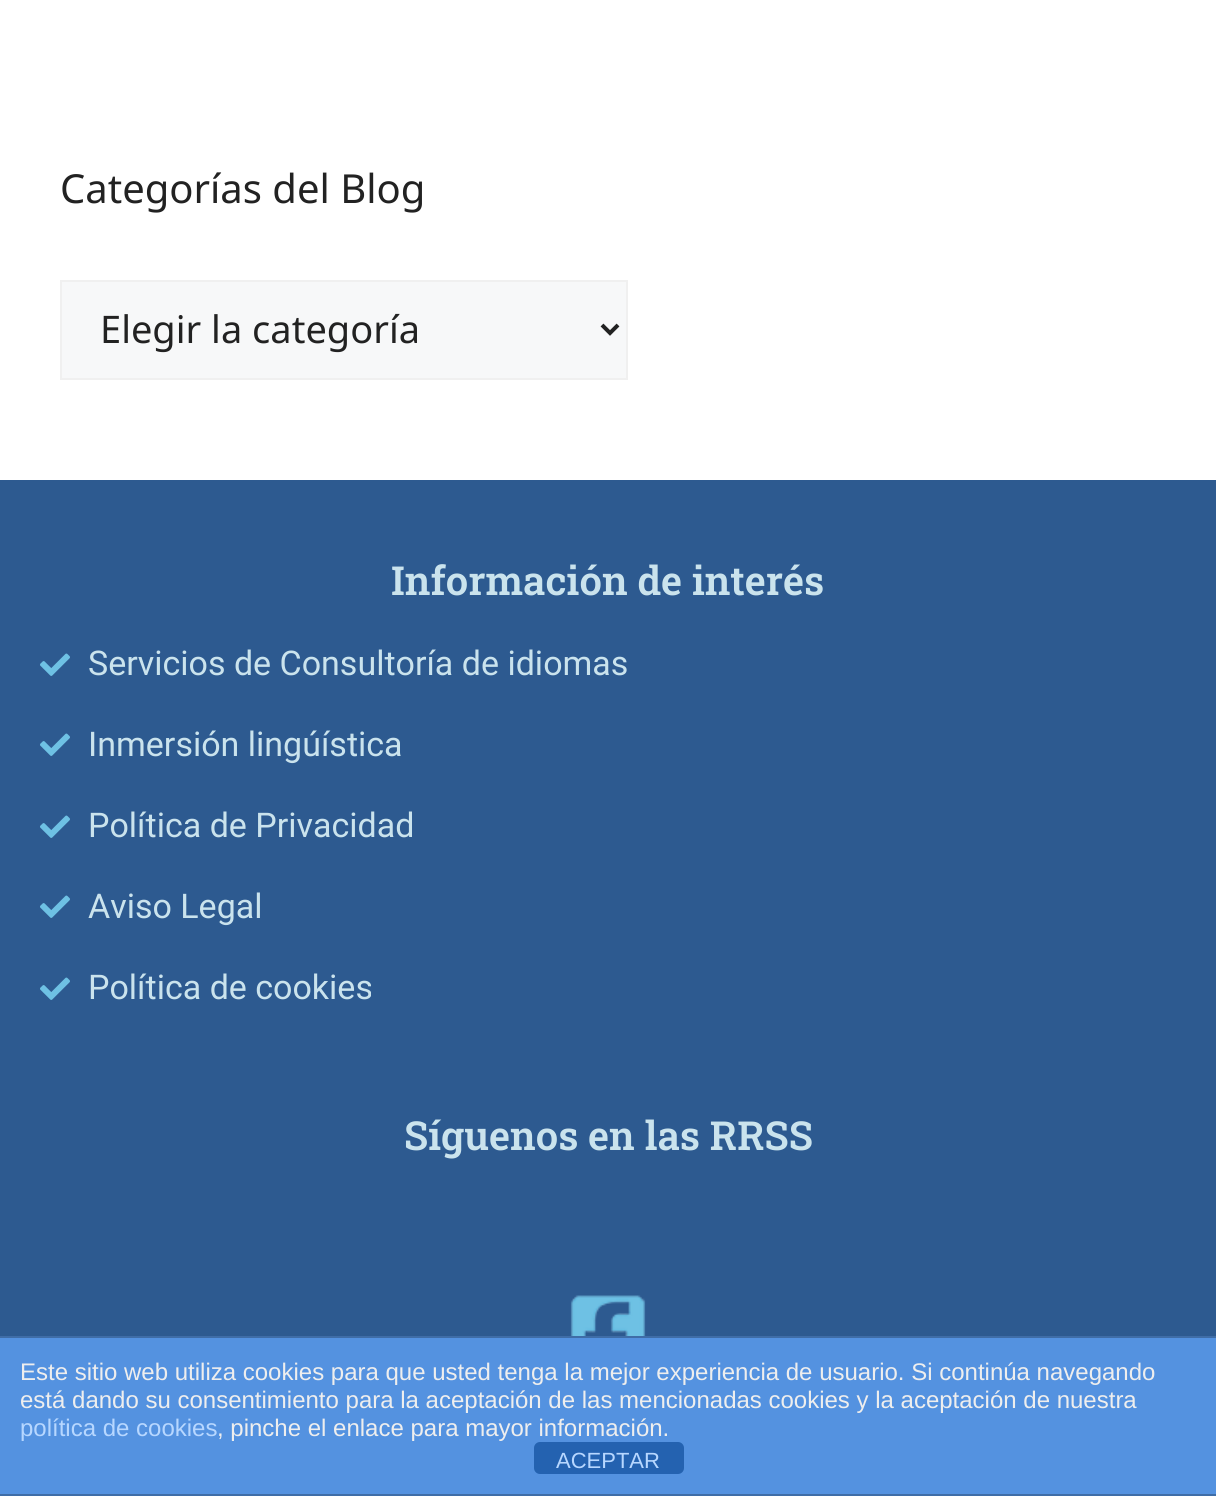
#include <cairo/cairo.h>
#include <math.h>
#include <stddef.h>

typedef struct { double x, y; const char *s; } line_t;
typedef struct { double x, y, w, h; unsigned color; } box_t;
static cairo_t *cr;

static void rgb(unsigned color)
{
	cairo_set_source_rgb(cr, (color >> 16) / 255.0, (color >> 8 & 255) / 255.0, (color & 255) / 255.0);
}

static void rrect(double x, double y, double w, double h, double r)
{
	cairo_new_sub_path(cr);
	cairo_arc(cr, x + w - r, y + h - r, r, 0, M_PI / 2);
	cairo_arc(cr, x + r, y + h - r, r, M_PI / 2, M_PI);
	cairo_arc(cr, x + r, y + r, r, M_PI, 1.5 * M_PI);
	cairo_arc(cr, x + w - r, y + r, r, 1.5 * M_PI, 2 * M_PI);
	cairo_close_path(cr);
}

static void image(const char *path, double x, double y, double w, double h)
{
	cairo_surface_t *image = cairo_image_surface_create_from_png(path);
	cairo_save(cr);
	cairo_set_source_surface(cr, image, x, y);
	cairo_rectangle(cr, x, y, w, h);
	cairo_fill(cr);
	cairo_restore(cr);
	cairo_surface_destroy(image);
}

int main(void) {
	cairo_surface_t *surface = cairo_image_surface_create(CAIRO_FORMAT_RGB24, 1216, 1496);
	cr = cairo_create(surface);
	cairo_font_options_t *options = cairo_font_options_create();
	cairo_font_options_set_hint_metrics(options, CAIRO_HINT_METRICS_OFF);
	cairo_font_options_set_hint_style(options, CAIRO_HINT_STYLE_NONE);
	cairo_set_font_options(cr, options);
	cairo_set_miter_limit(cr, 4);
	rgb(0xffffff);
	cairo_paint(cr);
	rgb(0xf7f8f9);
	cairo_rectangle(cr, 61, 281, 566, 98);
	cairo_fill_preserve(cr);
	rgb(0xf0f0f0);
	cairo_stroke(cr);
	cairo_new_path(cr);
	cairo_move_to(cr, 602, 325);
	cairo_line_to(cr, 610, 333);
	cairo_line_to(cr, 618, 325);
	rgb(0x222222);
	cairo_set_line_width(cr, 4);
	cairo_stroke(cr);
	rgb(0x2d5a90);
	cairo_rectangle(cr, 0, 480, 1216, 856);
	cairo_fill(cr);
	image("img/1.png", 40, 653, 30, 23);
	image("img/1.png", 40, 733, 30, 23);
	image("img/1.png", 40, 815, 30, 23);
	image("img/1.png", 40, 895, 30, 23);
	image("img/1.png", 40, 977, 30, 23);
	image("img/2.png", 570, 1295, 76, 41);
	{
		static const box_t items[] = {
			{0, 1338, 1216, 156, 0x5492e0},
			{0, 1336, 1216, 2, 0x3f6da7},
			{0, 1494, 1216, 2, 0x3f6da7},
		};
		for (size_t i = 0; i < sizeof items / sizeof *items; i++) {
			rgb(items[i].color);
			cairo_rectangle(cr, items[i].x, items[i].y, items[i].w, items[i].h);
			cairo_fill(cr);
		}
	}
	rgb(0x2462b0);
	rrect(534, 1442, 150, 32, 6);
	cairo_fill(cr);
	cairo_select_font_face(cr, "Noto Sans", CAIRO_FONT_SLANT_NORMAL, CAIRO_FONT_WEIGHT_NORMAL);
	cairo_set_font_size(cr, 40);
	rgb(0x222222);
	cairo_move_to(cr, 60, 203);
	cairo_show_text(cr, "Categorías del Blog");
	cairo_set_font_size(cr, 38);
	cairo_move_to(cr, 100, 343);
	cairo_show_text(cr, "Elegir la categoría");
	cairo_select_font_face(cr, "Roboto Slab SemiBold", CAIRO_FONT_SLANT_NORMAL, CAIRO_FONT_WEIGHT_NORMAL);
	cairo_set_font_size(cr, 40);
	rgb(0xcae3ed);
	cairo_move_to(cr, 391, 595);
	cairo_show_text(cr, "Información de interés");
	cairo_select_font_face(cr, "Roboto", CAIRO_FONT_SLANT_NORMAL, CAIRO_FONT_WEIGHT_NORMAL);
	cairo_set_font_size(cr, 34);
	{
		static const line_t items[] = {
			{88, 675, "Servicios de Consultoría de idiomas"},
			{88, 756, "Inmersión lingúística"},
			{88, 837, "Política de Privacidad"},
			{88, 918, "Aviso Legal"},
			{88, 999, "Política de cookies"},
		};
		for (size_t i = 0; i < sizeof items / sizeof *items; i++) {
			cairo_move_to(cr, items[i].x, items[i].y);
			cairo_show_text(cr, items[i].s);
		}
	}
	cairo_select_font_face(cr, "Roboto Slab SemiBold", CAIRO_FONT_SLANT_NORMAL, CAIRO_FONT_WEIGHT_NORMAL);
	cairo_set_font_size(cr, 40);
	cairo_move_to(cr, 404, 1150);
	cairo_show_text(cr, "Síguenos en las RRSS");
	cairo_select_font_face(cr, "Liberation Sans", CAIRO_FONT_SLANT_NORMAL, CAIRO_FONT_WEIGHT_NORMAL);
	cairo_set_font_size(cr, 24);
	rgb(0xeeeeee);
	cairo_move_to(cr, 20, 1380);
	cairo_show_text(cr, "Este sitio web utiliza cookies para que usted tenga la mejor experiencia de usuario. Si continúa navegando");
	cairo_move_to(cr, 20, 1408);
	cairo_show_text(cr, "está dando su consentimiento para la aceptación de las mencionadas cookies y la aceptación de nuestra");
	rgb(0xb7d7ff);
	cairo_move_to(cr, 20, 1436);
	cairo_show_text(cr, "política de cookies");
	rgb(0xeeeeee);
	cairo_move_to(cr, 217, 1436);
	cairo_show_text(cr, ", pinche el enlace para mayor información.");
	cairo_set_font_size(cr, 22);
	rgb(0xb7d7ff);
	cairo_move_to(cr, 556, 1468);
	cairo_show_text(cr, "ACEPTAR");
	cairo_surface_write_to_png(surface, "page.png");
	cairo_font_options_destroy(options);
	cairo_destroy(cr);
	cairo_surface_destroy(surface);
	return 0;
}
